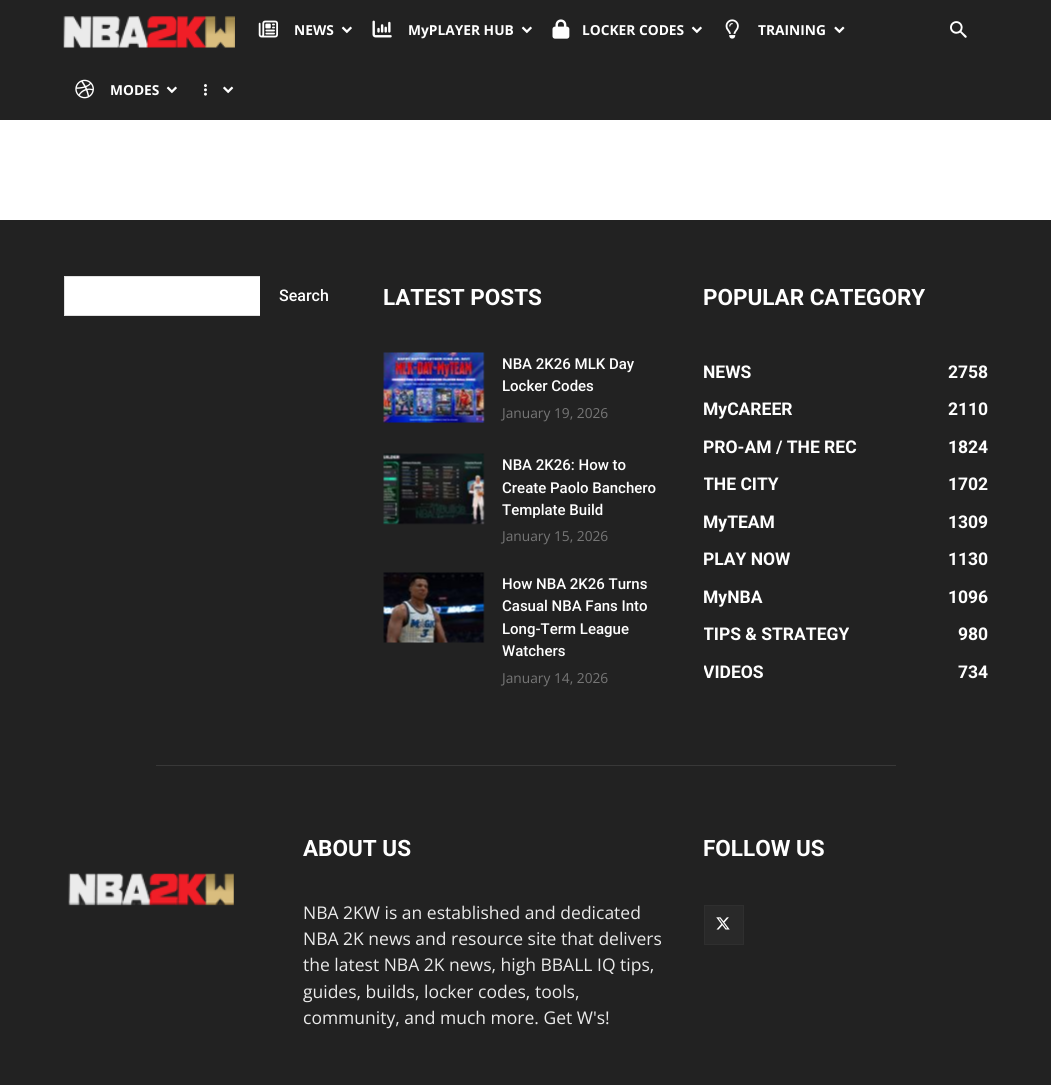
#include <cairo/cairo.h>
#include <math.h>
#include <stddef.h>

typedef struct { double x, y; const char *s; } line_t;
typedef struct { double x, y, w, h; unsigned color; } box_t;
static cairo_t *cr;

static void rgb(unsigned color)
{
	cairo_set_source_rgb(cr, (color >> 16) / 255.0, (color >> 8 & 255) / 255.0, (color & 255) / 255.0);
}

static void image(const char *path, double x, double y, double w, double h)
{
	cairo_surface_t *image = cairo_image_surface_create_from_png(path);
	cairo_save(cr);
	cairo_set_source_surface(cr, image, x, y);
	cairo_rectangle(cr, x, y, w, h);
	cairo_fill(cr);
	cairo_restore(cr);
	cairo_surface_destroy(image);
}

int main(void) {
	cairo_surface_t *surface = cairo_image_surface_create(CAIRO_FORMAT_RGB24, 1051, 1085);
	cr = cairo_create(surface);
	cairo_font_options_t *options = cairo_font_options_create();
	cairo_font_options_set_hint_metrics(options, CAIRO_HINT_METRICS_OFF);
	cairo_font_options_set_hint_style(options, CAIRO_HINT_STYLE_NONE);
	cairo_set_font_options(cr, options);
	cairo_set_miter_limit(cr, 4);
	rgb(0xffffff);
	cairo_paint(cr);
	rgb(0x222222);
	cairo_rectangle(cr, 0, 0, 1051, 120);
	cairo_fill(cr);
	image("img/1.png", 63, 16, 172, 32);
	image("img/2.png", 258, 20, 20, 18);
	image("img/3.png", 341, 26, 11, 8);
	image("img/4.png", 372, 20, 20, 18);
	image("img/3.png", 521, 26, 11, 8);
	image("img/5.png", 552, 19, 18, 20);
	image("img/3.png", 691, 26, 11, 8);
	image("img/6.png", 725, 19, 14, 20);
	image("img/7.png", 834, 26, 11, 8);
	image("img/8.png", 75, 79, 19, 20);
	image("img/3.png", 166, 86, 11, 8);
	image("img/9.png", 204, 84, 3, 12);
	image("img/10.png", 223, 86, 11, 8);
	image("img/11.png", 950, 21, 17, 17);
	{
		static const box_t items[] = {
			{0, 220, 1051, 865, 0x222222},
			{65, 277, 195, 38, 0xffffff},
			{64, 276, 196, 1, 0xe1e1e1},
			{64, 315, 196, 1, 0xe1e1e1},
			{64, 276, 1, 40, 0xe1e1e1},
		};
		for (size_t i = 0; i < sizeof items / sizeof *items; i++) {
			rgb(items[i].color);
			cairo_rectangle(cr, items[i].x, items[i].y, items[i].w, items[i].h);
			cairo_fill(cr);
		}
	}
	image("img/12.png", 383, 352, 102, 71);
	image("img/13.png", 383, 453, 102, 72);
	image("img/14.png", 383, 572, 102, 71);
	rgb(0x383838);
	cairo_rectangle(cr, 156, 765, 740, 1);
	cairo_fill(cr);
	rgb(0x292929);
	cairo_rectangle(cr, 705, 906, 38, 38);
	cairo_fill(cr);
	image("img/15.png", 716, 917, 14, 13);
	cairo_rectangle(cr, 704.5, 905.5, 39, 39);
	rgb(0x2f2f2f);
	cairo_set_line_width(cr, 1);
	cairo_stroke(cr);
	image("img/16.png", 68, 873, 166, 33);
	cairo_select_font_face(cr, "Open Sans", CAIRO_FONT_SLANT_NORMAL, CAIRO_FONT_WEIGHT_BOLD);
	cairo_set_font_size(cr, 13.75);
	rgb(0xffffff);
	{
		static const line_t items[] = {
			{294, 35, "NEWS"},
			{408, 35, "MyPLAYER HUB"},
			{582, 35, "LOCKER CODES"},
			{758, 35, "TRAINING"},
			{110, 95, "MODES"},
		};
		for (size_t i = 0; i < sizeof items / sizeof *items; i++) {
			cairo_move_to(cr, items[i].x, items[i].y);
			cairo_show_text(cr, items[i].s);
		}
	}
	cairo_select_font_face(cr, "Roboto Medium", CAIRO_FONT_SLANT_NORMAL, CAIRO_FONT_WEIGHT_NORMAL);
	cairo_set_font_size(cr, 16);
	cairo_move_to(cr, 279, 301);
	cairo_show_text(cr, "Search");
	cairo_select_font_face(cr, "Roboto", CAIRO_FONT_SLANT_NORMAL, CAIRO_FONT_WEIGHT_BOLD);
	cairo_set_font_size(cr, 22.5);
	cairo_move_to(cr, 383, 305);
	cairo_show_text(cr, "LATEST POSTS");
	cairo_select_font_face(cr, "Roboto Medium", CAIRO_FONT_SLANT_NORMAL, CAIRO_FONT_WEIGHT_NORMAL);
	cairo_set_font_size(cr, 15);
	cairo_move_to(cr, 502, 369);
	cairo_show_text(cr, "NBA 2K26 MLK Day");
	cairo_move_to(cr, 502, 391);
	cairo_show_text(cr, "Locker Codes");
	cairo_select_font_face(cr, "Open Sans", CAIRO_FONT_SLANT_NORMAL, CAIRO_FONT_WEIGHT_NORMAL);
	cairo_set_font_size(cr, 13.75);
	rgb(0x767676);
	cairo_move_to(cr, 502, 418);
	cairo_show_text(cr, "January 19, 2026");
	cairo_select_font_face(cr, "Roboto Medium", CAIRO_FONT_SLANT_NORMAL, CAIRO_FONT_WEIGHT_NORMAL);
	cairo_set_font_size(cr, 15);
	rgb(0xffffff);
	{
		static const line_t items[] = {
			{502, 470, "NBA 2K26: How to"},
			{502, 493, "Create Paolo Banchero"},
			{502, 515, "Template Build"},
		};
		for (size_t i = 0; i < sizeof items / sizeof *items; i++) {
			cairo_move_to(cr, items[i].x, items[i].y);
			cairo_show_text(cr, items[i].s);
		}
	}
	cairo_select_font_face(cr, "Open Sans", CAIRO_FONT_SLANT_NORMAL, CAIRO_FONT_WEIGHT_NORMAL);
	cairo_set_font_size(cr, 13.75);
	rgb(0x767676);
	cairo_move_to(cr, 502, 541);
	cairo_show_text(cr, "January 15, 2026");
	cairo_select_font_face(cr, "Roboto Medium", CAIRO_FONT_SLANT_NORMAL, CAIRO_FONT_WEIGHT_NORMAL);
	cairo_set_font_size(cr, 15);
	rgb(0xffffff);
	{
		static const line_t items[] = {
			{502, 589, "How NBA 2K26 Turns"},
			{502, 611, "Casual NBA Fans Into"},
			{502, 634, "Long-Term League"},
			{502, 656, "Watchers"},
		};
		for (size_t i = 0; i < sizeof items / sizeof *items; i++) {
			cairo_move_to(cr, items[i].x, items[i].y);
			cairo_show_text(cr, items[i].s);
		}
	}
	cairo_select_font_face(cr, "Open Sans", CAIRO_FONT_SLANT_NORMAL, CAIRO_FONT_WEIGHT_NORMAL);
	cairo_set_font_size(cr, 13.75);
	rgb(0x767676);
	cairo_move_to(cr, 502, 683);
	cairo_show_text(cr, "January 14, 2026");
	cairo_select_font_face(cr, "Roboto", CAIRO_FONT_SLANT_NORMAL, CAIRO_FONT_WEIGHT_BOLD);
	cairo_set_font_size(cr, 22.5);
	rgb(0xffffff);
	cairo_move_to(cr, 703, 305);
	cairo_show_text(cr, "POPULAR CATEGORY");
	cairo_set_font_size(cr, 17.5);
	{
		static const line_t items[] = {
			{703, 378, "NEWS"},
			{948, 378, "2758"},
			{703, 415, "MyCAREER"},
			{948, 415, "2110"},
			{703, 453, "PRO-AM / THE REC"},
			{948, 453, "1824"},
		};
		for (size_t i = 0; i < sizeof items / sizeof *items; i++) {
			cairo_move_to(cr, items[i].x, items[i].y);
			cairo_show_text(cr, items[i].s);
		}
	}
	cairo_save(cr);
	cairo_rectangle(cr, 704, 276, 285, 414);
	cairo_clip(cr);
	cairo_move_to(cr, 703, 490);
	cairo_show_text(cr, "THE CITY");
	cairo_restore(cr);
	{
		static const line_t items[] = {
			{948, 490, "1702"},
			{703, 528, "MyTEAM"},
			{948, 528, "1309"},
			{703, 565, "PLAY NOW"},
			{948, 565, "1130"},
			{703, 603, "MyNBA"},
			{948, 603, "1096"},
		};
		for (size_t i = 0; i < sizeof items / sizeof *items; i++) {
			cairo_move_to(cr, items[i].x, items[i].y);
			cairo_show_text(cr, items[i].s);
		}
	}
	cairo_save(cr);
	cairo_rectangle(cr, 704, 276, 285, 414);
	cairo_clip(cr);
	cairo_move_to(cr, 703, 640);
	cairo_show_text(cr, "TIPS & STRATEGY");
	cairo_restore(cr);
	cairo_move_to(cr, 958, 640);
	cairo_show_text(cr, "980");
	cairo_save(cr);
	cairo_rectangle(cr, 704, 276, 285, 414);
	cairo_clip(cr);
	cairo_move_to(cr, 703, 678);
	cairo_show_text(cr, "VIDEOS");
	cairo_restore(cr);
	cairo_move_to(cr, 958, 678);
	cairo_show_text(cr, "734");
	cairo_set_font_size(cr, 22.5);
	cairo_move_to(cr, 303, 856);
	cairo_show_text(cr, "ABOUT US");
	cairo_select_font_face(cr, "Open Sans", CAIRO_FONT_SLANT_NORMAL, CAIRO_FONT_WEIGHT_NORMAL);
	cairo_set_font_size(cr, 17.5);
	rgb(0xeaeaea);
	{
		static const line_t items[] = {
			{303, 919, "NBA 2KW is an established and dedicated"},
			{303, 945, "NBA 2K news and resource site that delivers"},
			{303, 971, "the latest NBA 2K news, high BBALL IQ tips,"},
			{303, 998, "guides, builds, locker codes, tools,"},
			{303, 1024, "community, and much more. Get W's!"},
		};
		for (size_t i = 0; i < sizeof items / sizeof *items; i++) {
			cairo_move_to(cr, items[i].x, items[i].y);
			cairo_show_text(cr, items[i].s);
		}
	}
	cairo_select_font_face(cr, "Roboto", CAIRO_FONT_SLANT_NORMAL, CAIRO_FONT_WEIGHT_BOLD);
	cairo_set_font_size(cr, 22.5);
	rgb(0xffffff);
	cairo_move_to(cr, 703, 856);
	cairo_show_text(cr, "FOLLOW US");
	cairo_surface_write_to_png(surface, "page.png");
	cairo_font_options_destroy(options);
	cairo_destroy(cr);
	cairo_surface_destroy(surface);
	return 0;
}
